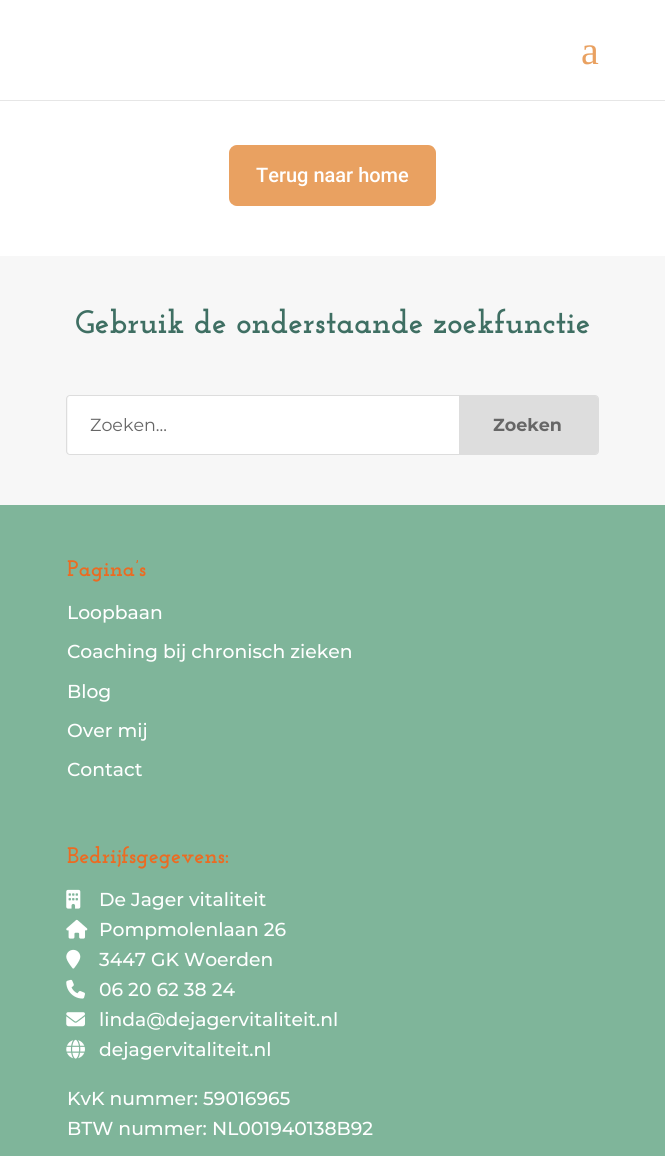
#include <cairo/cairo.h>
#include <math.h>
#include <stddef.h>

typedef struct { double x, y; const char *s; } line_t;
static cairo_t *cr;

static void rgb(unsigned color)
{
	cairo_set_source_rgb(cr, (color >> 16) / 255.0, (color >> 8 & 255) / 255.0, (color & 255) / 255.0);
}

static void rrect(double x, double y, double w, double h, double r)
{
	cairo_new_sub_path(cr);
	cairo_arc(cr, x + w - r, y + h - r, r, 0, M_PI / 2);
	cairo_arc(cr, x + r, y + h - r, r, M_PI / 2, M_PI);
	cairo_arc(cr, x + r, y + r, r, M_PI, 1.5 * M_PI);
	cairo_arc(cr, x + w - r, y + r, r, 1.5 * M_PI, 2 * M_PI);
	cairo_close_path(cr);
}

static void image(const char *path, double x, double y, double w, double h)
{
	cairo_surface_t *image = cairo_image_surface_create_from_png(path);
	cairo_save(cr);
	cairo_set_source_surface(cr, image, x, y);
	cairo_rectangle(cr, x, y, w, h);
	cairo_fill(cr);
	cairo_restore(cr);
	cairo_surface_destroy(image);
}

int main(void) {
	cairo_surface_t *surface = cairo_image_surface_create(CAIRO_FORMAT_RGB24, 665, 1156);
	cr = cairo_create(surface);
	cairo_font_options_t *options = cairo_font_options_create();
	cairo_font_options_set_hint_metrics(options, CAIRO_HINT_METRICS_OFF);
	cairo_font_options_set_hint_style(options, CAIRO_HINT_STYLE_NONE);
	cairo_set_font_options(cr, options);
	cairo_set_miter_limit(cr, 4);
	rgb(0xffffff);
	cairo_paint(cr);
	cairo_set_source_rgba(cr, 0, 0, 0, 0.1);
	cairo_rectangle(cr, 0, 100, 665, 1);
	cairo_fill(cr);
	rgb(0xe9a161);
	rrect(233, 149, 199, 53, 4);
	cairo_fill_preserve(cr);
	cairo_set_line_width(cr, 8);
	cairo_stroke(cr);
	rgb(0xf7f7f7);
	cairo_rectangle(cr, 0, 256, 665, 249);
	cairo_fill(cr);
	rrect(66.5, 395.5, 532, 59, 3.5);
	rgb(0xdddddd);
	cairo_set_line_width(cr, 1);
	cairo_stroke(cr);
	rgb(0xffffff);
	cairo_new_path(cr);
	cairo_move_to(cr, 70.5, 396);
	cairo_line_to(cr, 459, 396);
	cairo_line_to(cr, 459, 454);
	cairo_line_to(cr, 70.5, 454);
	cairo_curve_to(cr, 69, 454, 68, 453, 68, 451.5);
	cairo_line_to(cr, 68, 398.5);
	cairo_curve_to(cr, 68, 397, 69, 396, 70.5, 396);
	cairo_close_path(cr);
	cairo_fill(cr);
	rgb(0xdddddd);
	cairo_new_path(cr);
	cairo_move_to(cr, 459, 396);
	cairo_line_to(cr, 595.5, 396);
	cairo_curve_to(cr, 597, 396, 598, 397, 598, 398.5);
	cairo_line_to(cr, 598, 451.5);
	cairo_curve_to(cr, 598, 453, 597, 454, 595.5, 454);
	cairo_line_to(cr, 459, 454);
	cairo_close_path(cr);
	cairo_fill(cr);
	rgb(0x7fb59a);
	cairo_rectangle(cr, 0, 505, 665, 651);
	cairo_fill(cr);
	image("img/1.png", 66, 889, 15, 20);
	image("img/2.png", 66, 919, 22, 20);
	image("img/3.png", 66, 949, 15, 20);
	image("img/4.png", 66, 979, 19, 20);
	image("img/5.png", 66, 1012, 19, 15);
	image("img/6.png", 66, 1039, 19, 20);
	cairo_select_font_face(cr, "Liberation Serif", CAIRO_FONT_SLANT_NORMAL, CAIRO_FONT_WEIGHT_NORMAL);
	cairo_set_font_size(cr, 40);
	rgb(0xe9a161);
	cairo_move_to(cr, 581, 64);
	cairo_show_text(cr, "a");
	cairo_select_font_face(cr, "Roboto Medium", CAIRO_FONT_SLANT_NORMAL, CAIRO_FONT_WEIGHT_NORMAL);
	cairo_set_font_size(cr, 20);
	rgb(0xffffff);
	cairo_move_to(cr, 256, 182);
	cairo_show_text(cr, "Terug naar home");
	cairo_select_font_face(cr, "Josefin Slab", CAIRO_FONT_SLANT_NORMAL, CAIRO_FONT_WEIGHT_BOLD);
	cairo_set_font_size(cr, 32.5);
	rgb(0x3f6f63);
	cairo_move_to(cr, 75, 333);
	cairo_show_text(cr, "Gebruik de onderstaande zoekfunctie");
	cairo_select_font_face(cr, "Montserrat", CAIRO_FONT_SLANT_NORMAL, CAIRO_FONT_WEIGHT_NORMAL);
	cairo_set_font_size(cr, 17.5);
	rgb(0x666666);
	cairo_move_to(cr, 90, 431);
	cairo_show_text(cr, "Zoeken...");
	cairo_select_font_face(cr, "Montserrat", CAIRO_FONT_SLANT_NORMAL, CAIRO_FONT_WEIGHT_BOLD);
	cairo_move_to(cr, 493, 431);
	cairo_show_text(cr, "Zoeken");
	cairo_select_font_face(cr, "Josefin Slab", CAIRO_FONT_SLANT_NORMAL, CAIRO_FONT_WEIGHT_BOLD);
	cairo_set_font_size(cr, 22.5);
	rgb(0xeb6b22);
	cairo_move_to(cr, 67, 576);
	cairo_show_text(cr, "Pagina’s");
	cairo_select_font_face(cr, "Montserrat Medium", CAIRO_FONT_SLANT_NORMAL, CAIRO_FONT_WEIGHT_NORMAL);
	cairo_set_font_size(cr, 18.75);
	rgb(0xffffff);
	{
		static const line_t items[] = {
			{67, 619, "Loopbaan"},
			{67, 658, "Coaching bij chronisch zieken"},
			{67, 698, "Blog"},
			{67, 737, "Over mij"},
			{67, 776, "Contact"},
		};
		for (size_t i = 0; i < sizeof items / sizeof *items; i++) {
			cairo_move_to(cr, items[i].x, items[i].y);
			cairo_show_text(cr, items[i].s);
		}
	}
	cairo_select_font_face(cr, "Josefin Slab", CAIRO_FONT_SLANT_NORMAL, CAIRO_FONT_WEIGHT_BOLD);
	cairo_set_font_size(cr, 22.5);
	rgb(0xeb6b22);
	cairo_move_to(cr, 67, 863);
	cairo_show_text(cr, "Bedrijfsgegevens:");
	cairo_select_font_face(cr, "Montserrat Medium", CAIRO_FONT_SLANT_NORMAL, CAIRO_FONT_WEIGHT_NORMAL);
	cairo_set_font_size(cr, 18.75);
	rgb(0xffffff);
	{
		static const line_t items[] = {
			{99, 906, "De Jager vitaliteit"},
			{99, 936, "Pompmolenlaan 26"},
			{99, 966, "3447 GK Woerden"},
			{99, 996, "06 20 62 38 24"},
			{99, 1026, "linda@dejagervitaliteit.nl"},
			{99, 1056, "dejagervitaliteit.nl"},
			{67, 1105, "KvK nummer: 59016965"},
			{67, 1135, "BTW nummer: NL001940138B92"},
		};
		for (size_t i = 0; i < sizeof items / sizeof *items; i++) {
			cairo_move_to(cr, items[i].x, items[i].y);
			cairo_show_text(cr, items[i].s);
		}
	}
	cairo_surface_write_to_png(surface, "page.png");
	cairo_font_options_destroy(options);
	cairo_destroy(cr);
	cairo_surface_destroy(surface);
	return 0;
}
